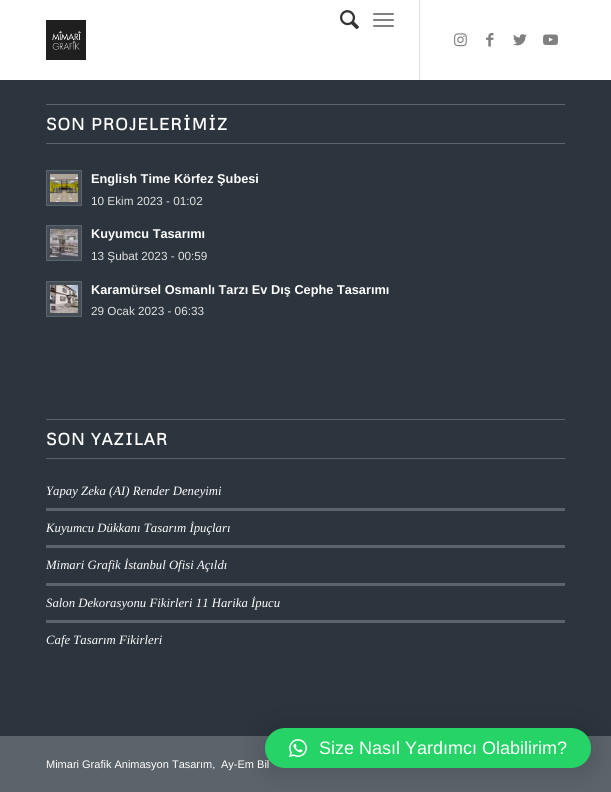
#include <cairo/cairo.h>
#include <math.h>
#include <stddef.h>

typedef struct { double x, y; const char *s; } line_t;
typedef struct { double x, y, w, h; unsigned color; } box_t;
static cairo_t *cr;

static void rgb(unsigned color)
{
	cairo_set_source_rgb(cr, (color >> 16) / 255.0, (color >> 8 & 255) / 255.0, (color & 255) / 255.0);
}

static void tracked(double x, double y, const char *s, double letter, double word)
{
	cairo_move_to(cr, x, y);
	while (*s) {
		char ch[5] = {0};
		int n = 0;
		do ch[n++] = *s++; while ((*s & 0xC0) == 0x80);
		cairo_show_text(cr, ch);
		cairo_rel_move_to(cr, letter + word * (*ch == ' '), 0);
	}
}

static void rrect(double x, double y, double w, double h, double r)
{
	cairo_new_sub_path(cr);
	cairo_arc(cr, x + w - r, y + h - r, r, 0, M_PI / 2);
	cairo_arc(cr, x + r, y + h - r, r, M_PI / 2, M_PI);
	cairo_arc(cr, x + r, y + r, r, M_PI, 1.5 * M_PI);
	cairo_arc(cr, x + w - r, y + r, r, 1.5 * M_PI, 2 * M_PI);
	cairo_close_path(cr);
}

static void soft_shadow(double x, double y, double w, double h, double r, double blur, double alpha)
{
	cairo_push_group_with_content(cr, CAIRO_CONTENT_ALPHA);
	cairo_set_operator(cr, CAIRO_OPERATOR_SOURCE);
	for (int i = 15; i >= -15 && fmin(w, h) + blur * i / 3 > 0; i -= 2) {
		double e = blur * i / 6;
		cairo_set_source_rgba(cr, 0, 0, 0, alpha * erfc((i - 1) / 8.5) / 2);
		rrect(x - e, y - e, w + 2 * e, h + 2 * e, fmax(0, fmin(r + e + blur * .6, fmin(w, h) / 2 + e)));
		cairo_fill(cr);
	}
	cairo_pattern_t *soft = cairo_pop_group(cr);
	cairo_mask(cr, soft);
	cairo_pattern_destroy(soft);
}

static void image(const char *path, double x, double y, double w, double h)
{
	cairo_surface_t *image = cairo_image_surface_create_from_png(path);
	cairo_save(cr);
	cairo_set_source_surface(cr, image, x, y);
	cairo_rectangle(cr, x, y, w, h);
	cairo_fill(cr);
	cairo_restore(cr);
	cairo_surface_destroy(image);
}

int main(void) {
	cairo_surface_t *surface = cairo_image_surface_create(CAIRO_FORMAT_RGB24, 611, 792);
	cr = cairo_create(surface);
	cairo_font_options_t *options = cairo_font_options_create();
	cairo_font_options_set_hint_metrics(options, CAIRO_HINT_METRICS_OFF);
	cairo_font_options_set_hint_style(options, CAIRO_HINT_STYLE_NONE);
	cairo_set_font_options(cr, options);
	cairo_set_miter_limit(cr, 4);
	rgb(0x2c353d);
	cairo_paint(cr);
	rgb(0xffffff);
	cairo_rectangle(cr, 0, 0, 611, 80);
	cairo_fill(cr);
	image("img/1.png", 46, 20, 40, 40);
	rgb(0xe1e1e1);
	cairo_rectangle(cr, 419, 0, 1, 80);
	cairo_fill(cr);
	image("img/2.png", 340, 10, 19, 20);
	rgb(0x808080);
	rrect(373, 19, 21, 2, 1);
	cairo_fill(cr);
	rrect(373, 13, 21, 2, 1);
	cairo_fill(cr);
	rrect(373, 25, 21, 2, 1);
	cairo_fill(cr);
	image("img/3.png", 454, 33, 13, 14);
	image("img/4.png", 486, 33, 8, 14);
	image("img/5.png", 513, 34, 14, 12);
	image("img/6.png", 543, 34, 15, 11);
	rgb(0x5b646b);
	cairo_rectangle(cr, 46, 104, 519, 1);
	cairo_fill(cr);
	cairo_rectangle(cr, 46, 143, 519, 1);
	cairo_fill(cr);
	rgb(0x454e57);
	cairo_rectangle(cr, 46.5, 170.5, 35, 35);
	cairo_fill_preserve(cr);
	rgb(0x5b646b);
	cairo_set_line_width(cr, 1);
	cairo_stroke(cr);
	image("img/7.png", 50, 174, 28, 28);
	rgb(0x454e57);
	cairo_rectangle(cr, 46.5, 225.5, 35, 35);
	cairo_fill_preserve(cr);
	rgb(0x5b646b);
	cairo_stroke(cr);
	image("img/8.png", 50, 229, 28, 28);
	rgb(0x454e57);
	cairo_rectangle(cr, 46.5, 281.5, 35, 35);
	cairo_fill_preserve(cr);
	rgb(0x5b646b);
	cairo_stroke(cr);
	image("img/9.png", 50, 285, 28, 28);
	{
		static const box_t items[] = {
			{46, 419, 519, 1, 0x5b646b},
			{46, 458, 519, 1, 0x5b646b},
			{46, 508, 519, 3, 0x5b646b},
			{46, 545, 519, 3, 0x5b646b},
			{46, 583, 519, 3, 0x5b646b},
			{46, 620, 519, 3, 0x5b646b},
			{0, 736, 611, 56, 0x5b646b},
		};
		for (size_t i = 0; i < sizeof items / sizeof *items; i++) {
			rgb(items[i].color);
			cairo_rectangle(cr, items[i].x, items[i].y, items[i].w, items[i].h);
			cairo_fill(cr);
		}
	}
	rgb(0x000000);
	soft_shadow(265, 730, 326, 40, 20, 16, 0.16);
	cairo_select_font_face(cr, "Metrophobic", CAIRO_FONT_SLANT_NORMAL, CAIRO_FONT_WEIGHT_BOLD);
	cairo_set_font_size(cr, 16.5);
	rgb(0xffffff);
	tracked(46, 130, "SON PROJELERİMİZ", 1, 0);
	cairo_select_font_face(cr, "Liberation Sans", CAIRO_FONT_SLANT_NORMAL, CAIRO_FONT_WEIGHT_BOLD);
	cairo_set_font_size(cr, 12.75);
	cairo_move_to(cr, 91, 183);
	cairo_show_text(cr, "English Time Körfez Şubesi");
	cairo_select_font_face(cr, "Liberation Sans", CAIRO_FONT_SLANT_NORMAL, CAIRO_FONT_WEIGHT_NORMAL);
	cairo_set_font_size(cr, 11.75);
	rgb(0xe1e1e1);
	cairo_move_to(cr, 91, 205);
	cairo_show_text(cr, "10 Ekim 2023 - 01:02");
	cairo_select_font_face(cr, "Liberation Sans", CAIRO_FONT_SLANT_NORMAL, CAIRO_FONT_WEIGHT_BOLD);
	cairo_set_font_size(cr, 12.75);
	rgb(0xffffff);
	cairo_move_to(cr, 91, 238);
	cairo_show_text(cr, "Kuyumcu Tasarımı");
	cairo_select_font_face(cr, "Liberation Sans", CAIRO_FONT_SLANT_NORMAL, CAIRO_FONT_WEIGHT_NORMAL);
	cairo_set_font_size(cr, 11.75);
	rgb(0xe1e1e1);
	cairo_move_to(cr, 91, 260);
	cairo_show_text(cr, "13 Şubat 2023 - 00:59");
	cairo_select_font_face(cr, "Liberation Sans", CAIRO_FONT_SLANT_NORMAL, CAIRO_FONT_WEIGHT_BOLD);
	cairo_set_font_size(cr, 12.75);
	rgb(0xffffff);
	cairo_move_to(cr, 91, 294);
	cairo_show_text(cr, "Karamürsel Osmanlı Tarzı Ev Dış Cephe Tasarımı");
	cairo_select_font_face(cr, "Liberation Sans", CAIRO_FONT_SLANT_NORMAL, CAIRO_FONT_WEIGHT_NORMAL);
	cairo_set_font_size(cr, 11.75);
	rgb(0xe1e1e1);
	cairo_move_to(cr, 91, 315);
	cairo_show_text(cr, "29 Ocak 2023 - 06:33");
	cairo_select_font_face(cr, "Metrophobic", CAIRO_FONT_SLANT_NORMAL, CAIRO_FONT_WEIGHT_BOLD);
	cairo_set_font_size(cr, 16.5);
	rgb(0xffffff);
	tracked(46, 445, "SON YAZILAR", 1, 0);
	cairo_select_font_face(cr, "Liberation Serif", CAIRO_FONT_SLANT_ITALIC, CAIRO_FONT_WEIGHT_NORMAL);
	cairo_set_font_size(cr, 12.75);
	{
		static const line_t items[] = {
			{46, 495, "Yapay Zeka (AI) Render Deneyimi"},
			{46, 532, "Kuyumcu Dükkanı Tasarım İpuçları"},
			{46, 569, "Mimari Grafik İstanbul Ofisi Açıldı"},
			{46, 607, "Salon Dekorasyonu Fikirleri 11 Harika İpucu"},
			{46, 644, "Cafe Tasarım Fikirleri"},
		};
		for (size_t i = 0; i < sizeof items / sizeof *items; i++) {
			cairo_move_to(cr, items[i].x, items[i].y);
			cairo_show_text(cr, items[i].s);
		}
	}
	cairo_select_font_face(cr, "Liberation Sans", CAIRO_FONT_SLANT_NORMAL, CAIRO_FONT_WEIGHT_NORMAL);
	cairo_set_font_size(cr, 11);
	cairo_move_to(cr, 46, 768);
	cairo_show_text(cr, "Mimari Grafik Animasyon Tasarım,");
	cairo_move_to(cr, 221, 768);
	cairo_show_text(cr, "Ay-Em Bil");
	rgb(0x25d366);
	rrect(265, 728, 326, 40, 20);
	cairo_fill(cr);
	image("img/10.png", 289, 739, 18, 19);
	cairo_set_font_size(cr, 18);
	rgb(0xffffff);
	cairo_move_to(cr, 319, 754);
	cairo_show_text(cr, "Size Nasıl Yardımcı Olabilirim?");
	cairo_surface_write_to_png(surface, "page.png");
	cairo_font_options_destroy(options);
	cairo_destroy(cr);
	cairo_surface_destroy(surface);
	return 0;
}
